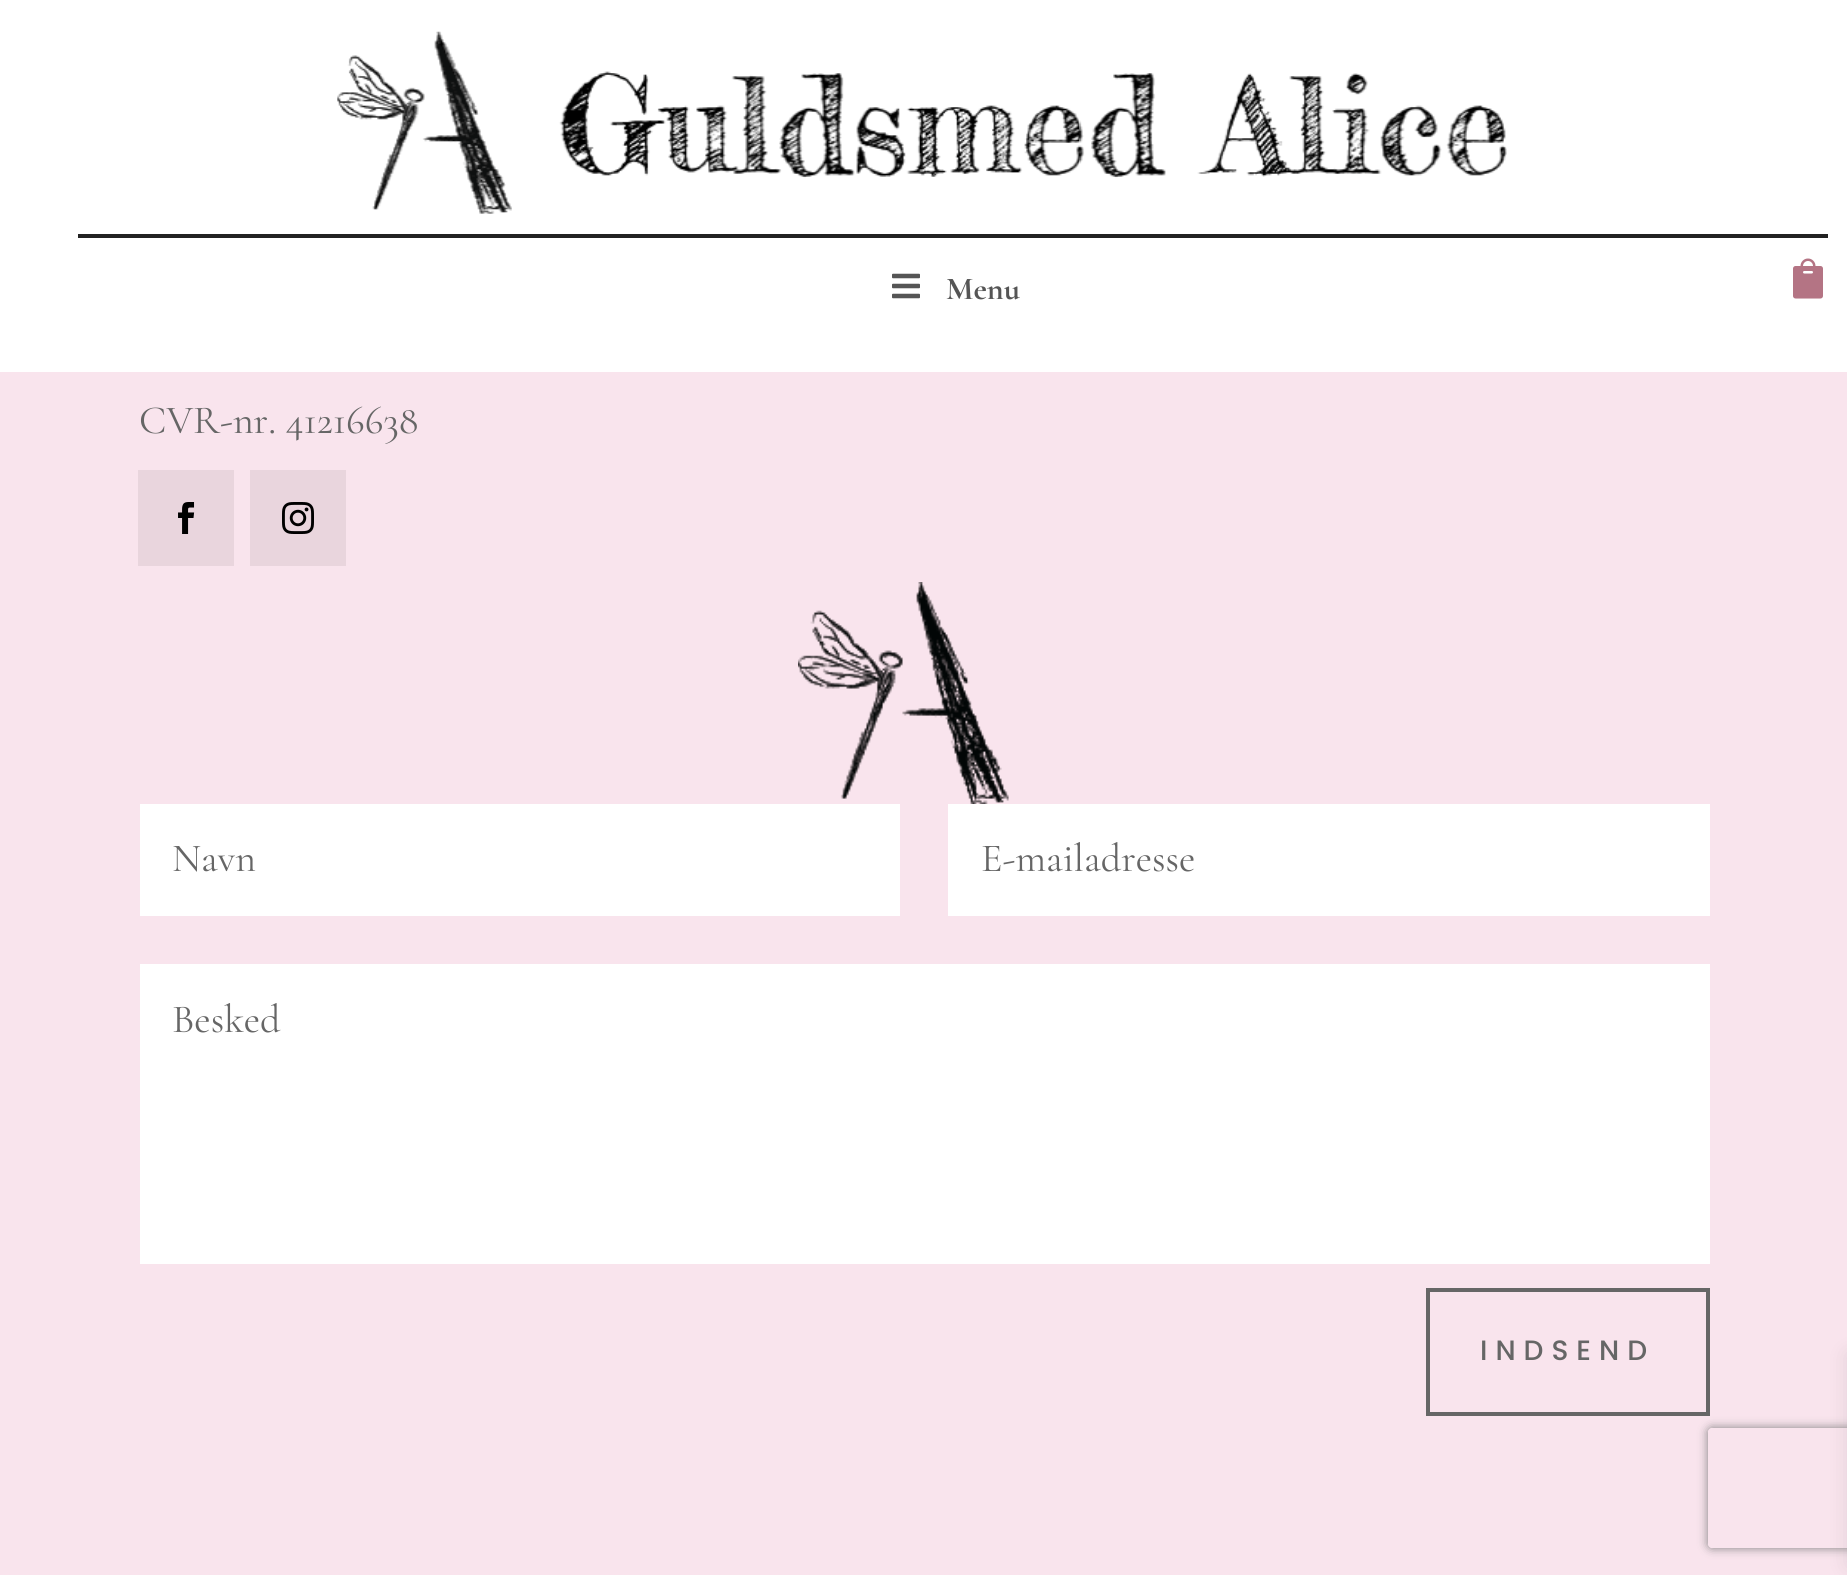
#include <cairo/cairo.h>
#include <math.h>
#include <stddef.h>

typedef struct { double x, y; const char *s; } line_t;
typedef struct { double x, y, w, h; unsigned color; } box_t;
static cairo_t *cr;

static void rgb(unsigned color)
{
	cairo_set_source_rgb(cr, (color >> 16) / 255.0, (color >> 8 & 255) / 255.0, (color & 255) / 255.0);
}

static void tracked(double x, double y, const char *s, double letter, double word)
{
	cairo_move_to(cr, x, y);
	while (*s) {
		char ch[5] = {0};
		int n = 0;
		do ch[n++] = *s++; while ((*s & 0xC0) == 0x80);
		cairo_show_text(cr, ch);
		cairo_rel_move_to(cr, letter + word * (*ch == ' '), 0);
	}
}

static void rrect(double x, double y, double w, double h, double r)
{
	cairo_new_sub_path(cr);
	cairo_arc(cr, x + w - r, y + h - r, r, 0, M_PI / 2);
	cairo_arc(cr, x + r, y + h - r, r, M_PI / 2, M_PI);
	cairo_arc(cr, x + r, y + r, r, M_PI, 1.5 * M_PI);
	cairo_arc(cr, x + w - r, y + r, r, 1.5 * M_PI, 2 * M_PI);
	cairo_close_path(cr);
}

static void soft_shadow(double x, double y, double w, double h, double r, double blur, double alpha)
{
	cairo_push_group_with_content(cr, CAIRO_CONTENT_ALPHA);
	cairo_set_operator(cr, CAIRO_OPERATOR_SOURCE);
	for (int i = 15; i >= -15 && fmin(w, h) + blur * i / 3 > 0; i -= 2) {
		double e = blur * i / 6;
		cairo_set_source_rgba(cr, 0, 0, 0, alpha * erfc((i - 1) / 8.5) / 2);
		rrect(x - e, y - e, w + 2 * e, h + 2 * e, fmax(0, fmin(r + e + blur * .6, fmin(w, h) / 2 + e)));
		cairo_fill(cr);
	}
	cairo_pattern_t *soft = cairo_pop_group(cr);
	cairo_mask(cr, soft);
	cairo_pattern_destroy(soft);
}

static void image(const char *path, double x, double y, double w, double h)
{
	cairo_surface_t *image = cairo_image_surface_create_from_png(path);
	cairo_save(cr);
	cairo_set_source_surface(cr, image, x, y);
	cairo_rectangle(cr, x, y, w, h);
	cairo_fill(cr);
	cairo_restore(cr);
	cairo_surface_destroy(image);
}

int main(void) {
	cairo_surface_t *surface = cairo_image_surface_create(CAIRO_FORMAT_RGB24, 1847, 1575);
	cr = cairo_create(surface);
	cairo_font_options_t *options = cairo_font_options_create();
	cairo_font_options_set_hint_metrics(options, CAIRO_HINT_METRICS_OFF);
	cairo_font_options_set_hint_style(options, CAIRO_HINT_STYLE_NONE);
	cairo_set_font_options(cr, options);
	cairo_set_miter_limit(cr, 4);
	rgb(0xf9e4ed);
	cairo_paint(cr);
	rgb(0xffffff);
	cairo_rectangle(cr, 0, 0, 1847, 372);
	cairo_fill(cr);
	image("img/1.png", 337, 31, 1170, 183);
	rgb(0x222222);
	cairo_rectangle(cr, 78, 234, 1750, 4);
	cairo_fill(cr);
	image("img/2.png", 892, 273, 28, 26);
	image("img/3.png", 1793, 258, 30, 41);
	rgb(0xe9d5dd);
	cairo_rectangle(cr, 138, 470, 96, 96);
	cairo_fill(cr);
	image("img/4.png", 178, 502, 17, 32);
	cairo_rectangle(cr, 250, 470, 96, 96);
	cairo_fill(cr);
	image("img/5.png", 282, 502, 32, 32);
	image("img/6.png", 798, 582, 211, 222);
	{
		static const box_t items[] = {
			{140, 804, 760, 112, 0xffffff},
			{948, 804, 762, 112, 0xffffff},
			{140, 964, 1570, 300, 0xffffff},
		};
		for (size_t i = 0; i < sizeof items / sizeof *items; i++) {
			rgb(items[i].color);
			cairo_rectangle(cr, items[i].x, items[i].y, items[i].w, items[i].h);
			cairo_fill(cr);
		}
	}
	cairo_rectangle(cr, 1428, 1290, 280, 124);
	rgb(0x666666);
	cairo_set_line_width(cr, 4);
	cairo_stroke(cr);
	rgb(0x000000);
	soft_shadow(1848, 1354, 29, 212, 0, 10, 0.1);
	cairo_save(cr);
	cairo_set_fill_rule(cr, CAIRO_FILL_RULE_EVEN_ODD);
	cairo_new_path(cr);
	cairo_move_to(cr, 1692, 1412);
	cairo_line_to(cr, 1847, 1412);
	cairo_line_to(cr, 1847, 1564);
	cairo_line_to(cr, 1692, 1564);
	cairo_close_path(cr);
	cairo_move_to(cr, 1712, 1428);
	cairo_line_to(cr, 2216, 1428);
	cairo_curve_to(cr, 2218, 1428, 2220, 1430, 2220, 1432);
	cairo_line_to(cr, 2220, 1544);
	cairo_curve_to(cr, 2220, 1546, 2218, 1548, 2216, 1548);
	cairo_line_to(cr, 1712, 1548);
	cairo_curve_to(cr, 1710, 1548, 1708, 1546, 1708, 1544);
	cairo_line_to(cr, 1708, 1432);
	cairo_curve_to(cr, 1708, 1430, 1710, 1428, 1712, 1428);
	cairo_close_path(cr);
	cairo_clip(cr);
	rgb(0x808080);
	soft_shadow(1708, 1428, 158, 120, 4, 5, 1);
	cairo_restore(cr);
	cairo_select_font_face(cr, "Cormorant Garamond", CAIRO_FONT_SLANT_NORMAL, CAIRO_FONT_WEIGHT_BOLD);
	cairo_set_font_size(cr, 32);
	rgb(0x555555);
	cairo_move_to(cr, 946, 299);
	cairo_show_text(cr, "Menu");
	cairo_select_font_face(cr, "Cormorant Garamond", CAIRO_FONT_SLANT_NORMAL, CAIRO_FONT_WEIGHT_NORMAL);
	cairo_set_font_size(cr, 40);
	rgb(0x666666);
	{
		static const line_t items[] = {
			{139, 433, "CVR-nr. 41216638"},
			{172, 871, "Navn"},
			{981, 871, "E-mailadresse"},
			{172, 1032, "Besked"},
		};
		for (size_t i = 0; i < sizeof items / sizeof *items; i++) {
			cairo_move_to(cr, items[i].x, items[i].y);
			cairo_show_text(cr, items[i].s);
		}
	}
	cairo_select_font_face(cr, "Poppins Medium", CAIRO_FONT_SLANT_NORMAL, CAIRO_FONT_WEIGHT_NORMAL);
	cairo_set_font_size(cr, 28);
	tracked(1480, 1360, "INDSEND", 8, 0);
	cairo_surface_write_to_png(surface, "page.png");
	cairo_font_options_destroy(options);
	cairo_destroy(cr);
	cairo_surface_destroy(surface);
	return 0;
}
